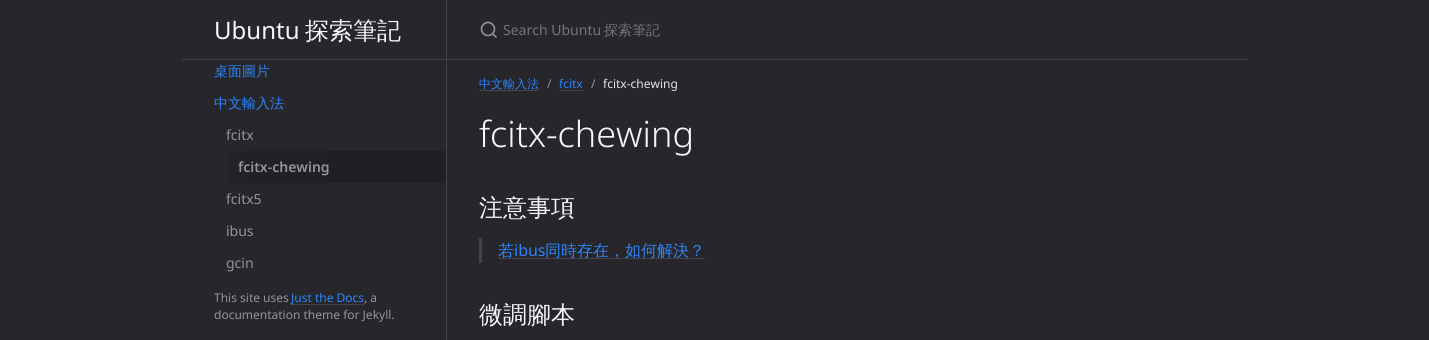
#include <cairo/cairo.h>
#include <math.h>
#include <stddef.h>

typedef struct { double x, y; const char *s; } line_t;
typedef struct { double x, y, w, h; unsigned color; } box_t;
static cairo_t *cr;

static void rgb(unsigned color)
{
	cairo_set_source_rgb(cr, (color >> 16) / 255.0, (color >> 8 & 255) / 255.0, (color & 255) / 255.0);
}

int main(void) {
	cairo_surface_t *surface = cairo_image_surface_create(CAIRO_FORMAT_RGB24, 1429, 340);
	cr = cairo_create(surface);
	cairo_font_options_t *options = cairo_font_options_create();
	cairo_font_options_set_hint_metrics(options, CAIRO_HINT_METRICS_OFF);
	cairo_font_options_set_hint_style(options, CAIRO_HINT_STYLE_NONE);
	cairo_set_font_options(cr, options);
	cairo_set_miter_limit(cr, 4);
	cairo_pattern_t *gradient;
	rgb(0x27262b);
	cairo_paint(cr);
	rgb(0x44434d);
	cairo_rectangle(cr, 446, 0, 1, 340);
	cairo_fill(cr);
	cairo_rectangle(cr, 182, 59, 264, 1);
	cairo_fill(cr);
	gradient = cairo_pattern_create_linear(446, 167, 206, 167);
	cairo_pattern_add_color_stop_rgba(gradient, 0, 0.125, 0.122, 0.137, 1);
	cairo_pattern_add_color_stop_rgba(gradient, 0.8, 0.129, 0.125, 0.145, 1);
	cairo_pattern_add_color_stop_rgba(gradient, 1, 0.153, 0.149, 0.169, 1);
	cairo_set_source(cr, gradient);
	cairo_pattern_destroy(gradient);
	cairo_rectangle(cr, 226, 151, 220, 32);
	cairo_fill(cr);
	rgb(0x44434d);
	cairo_rectangle(cr, 291, 304, 73, 1);
	cairo_fill(cr);
	cairo_rectangle(cr, 447, 59, 800, 1);
	cairo_fill(cr);
	cairo_arc(cr, 488, 29, 6.5, 0, 2 * M_PI);
	rgb(0x959396);
	cairo_set_line_width(cr, 1.6);
	cairo_stroke(cr);
	cairo_new_path(cr);
	cairo_move_to(cr, 496, 37);
	cairo_line_to(cr, 492.5, 33.5);
	cairo_set_line_cap(cr, CAIRO_LINE_CAP_ROUND);
	cairo_set_line_join(cr, CAIRO_LINE_JOIN_ROUND);
	cairo_stroke(cr);
	{
		static const box_t items[] = {
			{479, 90, 60, 1, 0x44434d},
			{559, 90, 24, 1, 0x44434d},
			{479, 238, 3, 25, 0x44434d},
			{498, 258, 207, 1, 0x44434d},
		};
		for (size_t i = 0; i < sizeof items / sizeof *items; i++) {
			rgb(items[i].color);
			cairo_rectangle(cr, items[i].x, items[i].y, items[i].w, items[i].h);
			cairo_fill(cr);
		}
	}
	cairo_select_font_face(cr, "Noto Sans", CAIRO_FONT_SLANT_NORMAL, CAIRO_FONT_WEIGHT_NORMAL);
	cairo_set_font_size(cr, 24);
	rgb(0xf5f6fa);
	cairo_move_to(cr, 214, 39);
	cairo_show_text(cr, "Ubuntu");
	cairo_select_font_face(cr, "WenQuanYi Zen Hei Medium", CAIRO_FONT_SLANT_NORMAL, CAIRO_FONT_WEIGHT_NORMAL);
	cairo_move_to(cr, 305, 39);
	cairo_show_text(cr, "探索筆記");
	cairo_set_font_size(cr, 14);
	rgb(0x2c84fa);
	cairo_move_to(cr, 214, 76);
	cairo_show_text(cr, "桌面圖片");
	cairo_move_to(cr, 214, 108);
	cairo_show_text(cr, "中文輸入法");
	cairo_select_font_face(cr, "Noto Sans", CAIRO_FONT_SLANT_NORMAL, CAIRO_FONT_WEIGHT_NORMAL);
	rgb(0x959396);
	cairo_move_to(cr, 226, 140);
	cairo_show_text(cr, "fcitx");
	cairo_select_font_face(cr, "Noto Sans SemiBold", CAIRO_FONT_SLANT_NORMAL, CAIRO_FONT_WEIGHT_NORMAL);
	cairo_move_to(cr, 238, 172);
	cairo_show_text(cr, "fcitx-chewing");
	cairo_select_font_face(cr, "Noto Sans", CAIRO_FONT_SLANT_NORMAL, CAIRO_FONT_WEIGHT_NORMAL);
	{
		static const line_t items[] = {
			{226, 204, "fcitx5"},
			{226, 236, "ibus"},
			{226, 268, "gcin"},
		};
		for (size_t i = 0; i < sizeof items / sizeof *items; i++) {
			cairo_move_to(cr, items[i].x, items[i].y);
			cairo_show_text(cr, items[i].s);
		}
	}
	cairo_set_font_size(cr, 12);
	cairo_move_to(cr, 214, 302);
	cairo_show_text(cr, "This site uses");
	rgb(0x2c84fa);
	cairo_move_to(cr, 291, 302);
	cairo_show_text(cr, "Just the Docs");
	rgb(0x959396);
	cairo_move_to(cr, 364, 302);
	cairo_show_text(cr, ", a");
	cairo_move_to(cr, 214, 319);
	cairo_show_text(cr, "documentation theme for Jekyll.");
	cairo_set_font_size(cr, 14);
	rgb(0x757575);
	cairo_move_to(cr, 503, 35);
	cairo_show_text(cr, "Search Ubuntu");
	cairo_select_font_face(cr, "WenQuanYi Zen Hei Medium", CAIRO_FONT_SLANT_NORMAL, CAIRO_FONT_WEIGHT_NORMAL);
	cairo_move_to(cr, 604, 35);
	cairo_show_text(cr, "探索筆記");
	cairo_set_font_size(cr, 12);
	rgb(0x2c84fa);
	cairo_move_to(cr, 479, 88);
	cairo_show_text(cr, "中文輸入法");
	cairo_select_font_face(cr, "Noto Sans", CAIRO_FONT_SLANT_NORMAL, CAIRO_FONT_WEIGHT_NORMAL);
	rgb(0x959396);
	cairo_move_to(cr, 547, 88);
	cairo_show_text(cr, "/");
	rgb(0x2c84fa);
	cairo_move_to(cr, 559, 88);
	cairo_show_text(cr, "fcitx");
	rgb(0x959396);
	cairo_move_to(cr, 591, 88);
	cairo_show_text(cr, "/");
	rgb(0xe6e1e8);
	cairo_move_to(cr, 603, 88);
	cairo_show_text(cr, "fcitx-chewing");
	cairo_select_font_face(cr, "Noto Sans Light", CAIRO_FONT_SLANT_NORMAL, CAIRO_FONT_WEIGHT_NORMAL);
	cairo_set_font_size(cr, 36);
	rgb(0xf5f6fa);
	cairo_move_to(cr, 479, 147);
	cairo_show_text(cr, "fcitx-chewing");
	cairo_select_font_face(cr, "WenQuanYi Zen Hei Medium", CAIRO_FONT_SLANT_NORMAL, CAIRO_FONT_WEIGHT_NORMAL);
	cairo_set_font_size(cr, 24);
	cairo_move_to(cr, 479, 216);
	cairo_show_text(cr, "注意事項");
	cairo_set_font_size(cr, 16);
	rgb(0x2c84fa);
	cairo_move_to(cr, 498, 256);
	cairo_show_text(cr, "若");
	cairo_select_font_face(cr, "Noto Sans", CAIRO_FONT_SLANT_NORMAL, CAIRO_FONT_WEIGHT_NORMAL);
	cairo_move_to(cr, 514, 256);
	cairo_show_text(cr, "ibus");
	cairo_select_font_face(cr, "WenQuanYi Zen Hei Medium", CAIRO_FONT_SLANT_NORMAL, CAIRO_FONT_WEIGHT_NORMAL);
	cairo_move_to(cr, 545, 256);
	cairo_show_text(cr, "同時存在，如何解決？");
	cairo_set_font_size(cr, 24);
	rgb(0xf5f6fa);
	cairo_move_to(cr, 479, 323);
	cairo_show_text(cr, "微調腳本");
	cairo_surface_write_to_png(surface, "page.png");
	cairo_font_options_destroy(options);
	cairo_destroy(cr);
	cairo_surface_destroy(surface);
	return 0;
}
